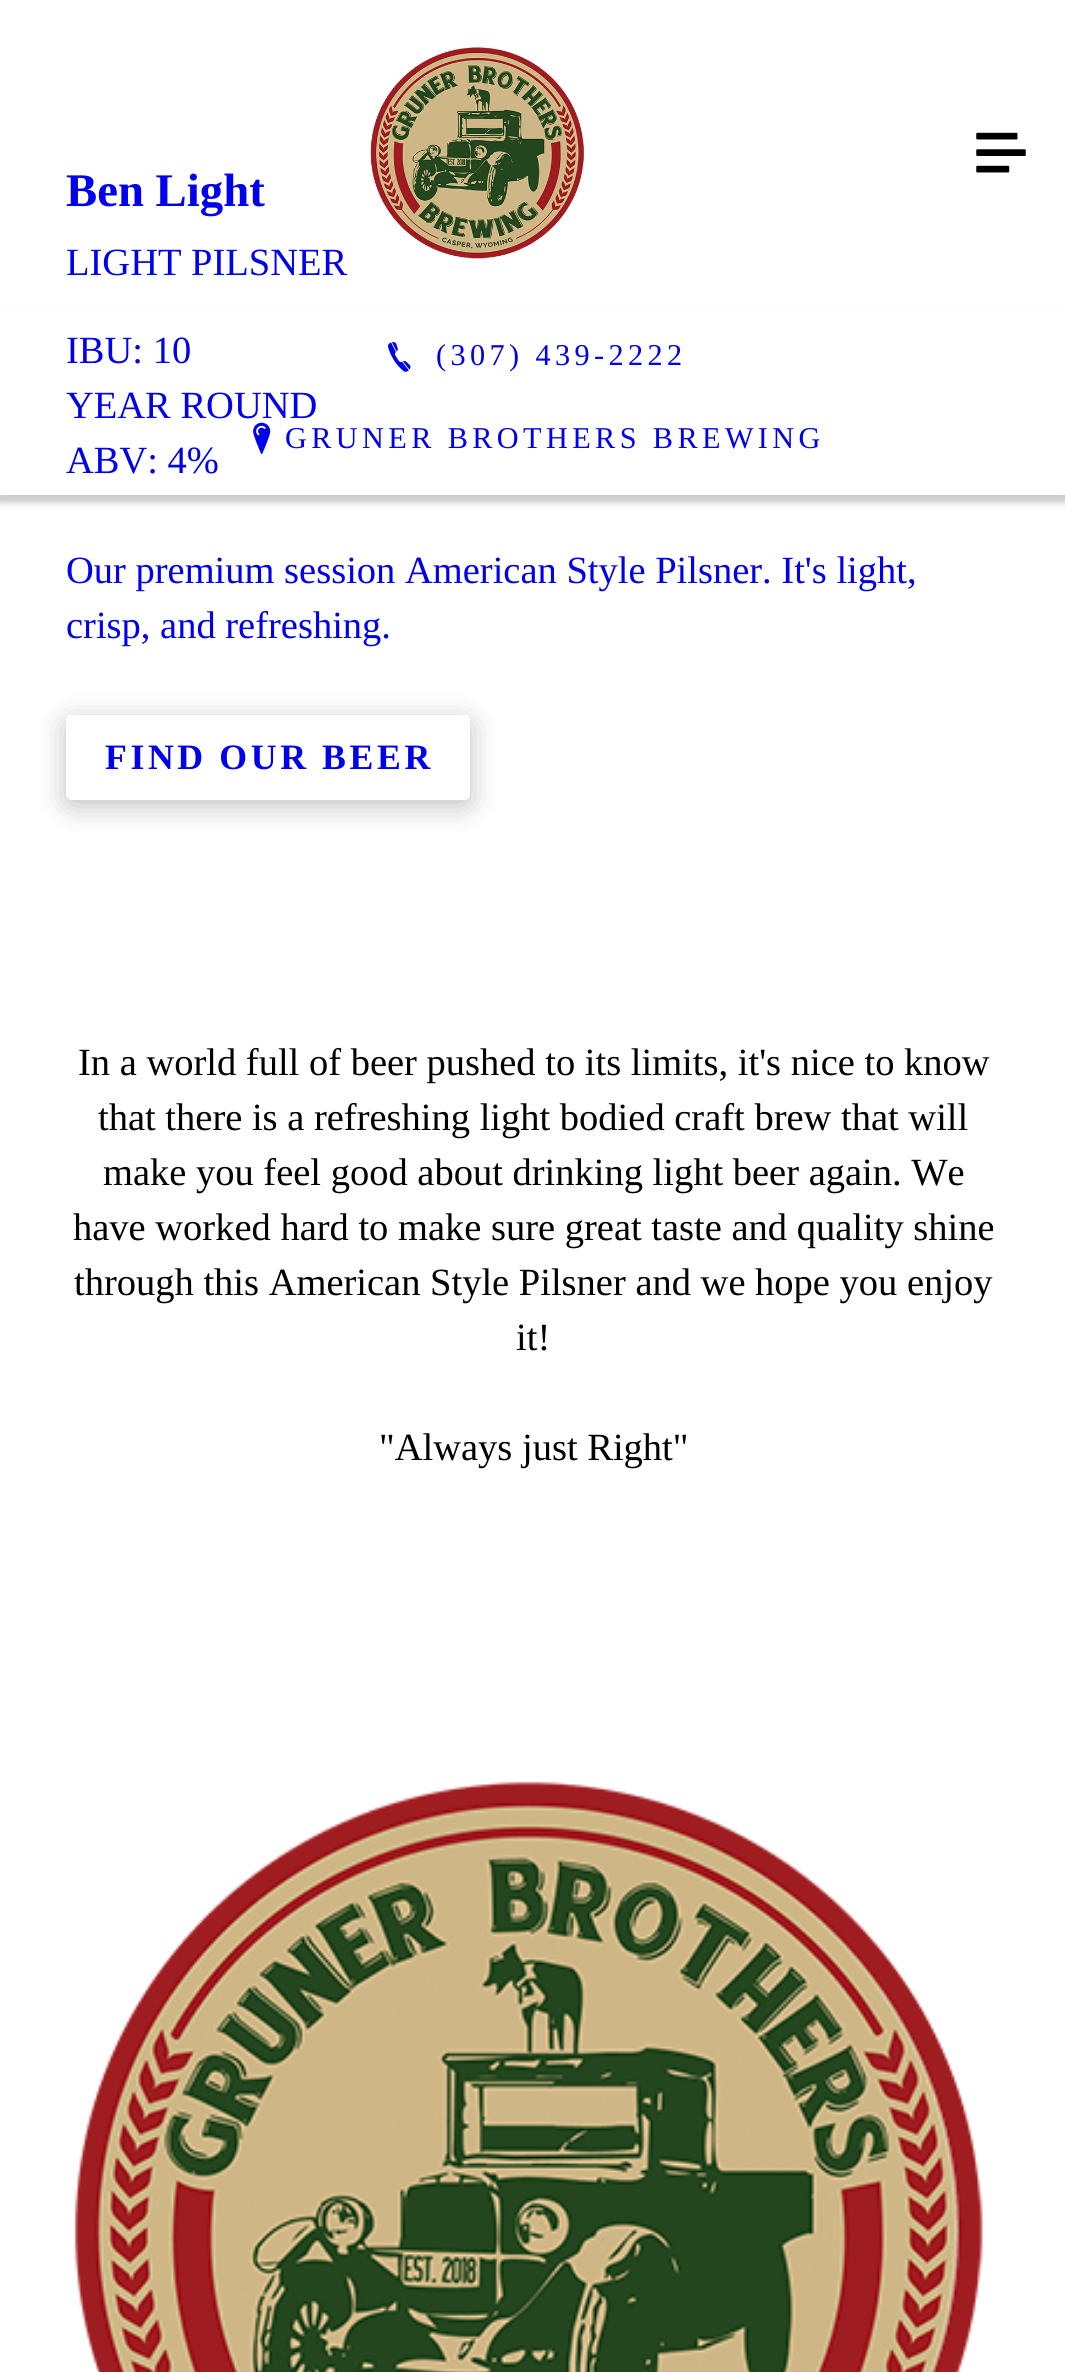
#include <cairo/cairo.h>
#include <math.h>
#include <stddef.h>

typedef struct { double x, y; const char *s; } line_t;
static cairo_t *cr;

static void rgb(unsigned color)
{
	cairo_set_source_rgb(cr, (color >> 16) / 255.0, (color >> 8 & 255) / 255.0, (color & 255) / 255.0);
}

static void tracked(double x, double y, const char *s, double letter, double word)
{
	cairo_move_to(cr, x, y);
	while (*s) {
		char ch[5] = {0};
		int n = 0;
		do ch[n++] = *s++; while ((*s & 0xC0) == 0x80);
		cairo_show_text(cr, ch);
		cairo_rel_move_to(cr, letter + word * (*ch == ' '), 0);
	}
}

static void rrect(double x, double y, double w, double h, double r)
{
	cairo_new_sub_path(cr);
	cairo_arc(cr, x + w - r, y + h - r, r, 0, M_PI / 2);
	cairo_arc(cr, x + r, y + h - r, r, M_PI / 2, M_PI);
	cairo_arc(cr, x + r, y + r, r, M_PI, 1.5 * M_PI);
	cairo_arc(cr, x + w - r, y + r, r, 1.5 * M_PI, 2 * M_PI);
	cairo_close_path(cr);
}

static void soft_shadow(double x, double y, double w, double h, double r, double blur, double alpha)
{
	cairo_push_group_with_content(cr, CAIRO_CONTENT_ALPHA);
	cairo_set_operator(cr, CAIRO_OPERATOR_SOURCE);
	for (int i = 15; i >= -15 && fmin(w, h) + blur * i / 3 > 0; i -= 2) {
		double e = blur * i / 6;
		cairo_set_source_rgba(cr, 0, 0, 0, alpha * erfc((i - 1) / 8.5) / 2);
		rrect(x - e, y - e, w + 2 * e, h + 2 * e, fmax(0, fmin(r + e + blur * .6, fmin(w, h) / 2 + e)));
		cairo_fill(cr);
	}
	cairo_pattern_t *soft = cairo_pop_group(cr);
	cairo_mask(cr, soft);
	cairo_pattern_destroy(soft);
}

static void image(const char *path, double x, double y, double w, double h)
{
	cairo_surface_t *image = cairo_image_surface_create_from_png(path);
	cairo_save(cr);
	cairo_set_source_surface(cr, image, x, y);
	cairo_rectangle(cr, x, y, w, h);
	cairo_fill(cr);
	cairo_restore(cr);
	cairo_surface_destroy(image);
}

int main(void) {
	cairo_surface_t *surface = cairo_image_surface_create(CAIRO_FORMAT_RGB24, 1065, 2372);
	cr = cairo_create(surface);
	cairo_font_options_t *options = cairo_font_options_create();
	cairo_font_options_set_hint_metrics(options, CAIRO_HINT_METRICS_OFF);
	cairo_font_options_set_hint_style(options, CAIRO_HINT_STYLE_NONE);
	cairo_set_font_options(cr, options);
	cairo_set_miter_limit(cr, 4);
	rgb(0xffffff);
	cairo_paint(cr);
	cairo_save(cr);
	cairo_set_fill_rule(cr, CAIRO_FILL_RULE_EVEN_ODD);
	cairo_new_path(cr);
	cairo_move_to(cr, 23, 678);
	cairo_line_to(cr, 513, 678);
	cairo_line_to(cr, 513, 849);
	cairo_line_to(cr, 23, 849);
	cairo_close_path(cr);
	cairo_move_to(cr, 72, 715);
	cairo_line_to(cr, 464, 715);
	cairo_curve_to(cr, 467.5, 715, 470, 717.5, 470, 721);
	cairo_line_to(cr, 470, 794);
	cairo_curve_to(cr, 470, 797.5, 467.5, 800, 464, 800);
	cairo_line_to(cr, 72, 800);
	cairo_curve_to(cr, 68.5, 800, 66, 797.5, 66, 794);
	cairo_line_to(cr, 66, 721);
	cairo_curve_to(cr, 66, 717.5, 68.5, 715, 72, 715);
	cairo_close_path(cr);
	cairo_clip(cr);
	rgb(0x000000);
	soft_shadow(66, 721, 404, 85, 6, 14, 0.25);
	cairo_restore(cr);
	image("img/1.png", 370, 47, 214, 212);
	image("img/2.png", 976, 132, 50, 41);
	cairo_save(cr);
	cairo_set_fill_rule(cr, CAIRO_FILL_RULE_EVEN_ODD);
	cairo_new_path(cr);
	cairo_move_to(cr, 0, 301);
	cairo_line_to(cr, 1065, 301);
	cairo_line_to(cr, 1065, 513);
	cairo_line_to(cr, 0, 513);
	cairo_close_path(cr);
	cairo_move_to(cr, 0, 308);
	cairo_line_to(cr, 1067, 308);
	cairo_line_to(cr, 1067, 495);
	cairo_line_to(cr, 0, 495);
	cairo_close_path(cr);
	cairo_clip(cr);
	rgb(0x000000);
	soft_shadow(-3, 311, 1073, 192, 0, 3, 0.2);
	cairo_restore(cr);
	image("img/3.png", 387, 342, 24, 30);
	image("img/4.png", 253, 422, 18, 32);
	image("img/5.png", 74, 1781, 909, 591);
	cairo_select_font_face(cr, "Liberation Serif", CAIRO_FONT_SLANT_NORMAL, CAIRO_FONT_WEIGHT_BOLD);
	cairo_set_font_size(cr, 46.75);
	rgb(0x0000ee);
	cairo_move_to(cr, 66, 206);
	cairo_show_text(cr, "Ben Light");
	cairo_select_font_face(cr, "Liberation Serif", CAIRO_FONT_SLANT_NORMAL, CAIRO_FONT_WEIGHT_NORMAL);
	cairo_set_font_size(cr, 38.5);
	{
		static const line_t items[] = {
			{66, 275, "LIGHT PILSNER"},
			{66, 363, "IBU: 10"},
			{66, 418, "YEAR ROUND"},
			{66, 473, "ABV: 4%"},
			{66, 583, "Our premium session American Style Pilsner. It's light,"},
			{66, 638, "crisp, and refreshing."},
		};
		for (size_t i = 0; i < sizeof items / sizeof *items; i++) {
			cairo_move_to(cr, items[i].x, items[i].y);
			cairo_show_text(cr, items[i].s);
		}
	}
	cairo_select_font_face(cr, "Liberation Serif", CAIRO_FONT_SLANT_NORMAL, CAIRO_FONT_WEIGHT_BOLD);
	cairo_set_font_size(cr, 35.75);
	tracked(105, 769, "FIND OUR BEER", 3.6, 0);
	cairo_select_font_face(cr, "Liberation Serif", CAIRO_FONT_SLANT_NORMAL, CAIRO_FONT_WEIGHT_NORMAL);
	cairo_set_font_size(cr, 38.5);
	rgb(0x000000);
	{
		static const line_t items[] = {
			{78, 1075, "In a world full of beer pushed to its limits, it's nice to know"},
			{98, 1130, "that there is a refreshing light bodied craft brew that will"},
			{103, 1185, "make you feel good about drinking light beer again. We"},
			{73, 1240, "have worked hard to make sure great taste and quality shine"},
			{74, 1295, "through this American Style Pilsner and we hope you enjoy"},
			{516, 1350, "it!"},
			{379, 1460, "\"Always just Right\""},
		};
		for (size_t i = 0; i < sizeof items / sizeof *items; i++) {
			cairo_move_to(cr, items[i].x, items[i].y);
			cairo_show_text(cr, items[i].s);
		}
	}
	cairo_set_font_size(cr, 30.25);
	rgb(0x0000ee);
	tracked(436, 365, "(307) 439-2222", 4.4, 0);
	tracked(285, 448, "GRUNER BROTHERS BREWING", 4.4, 0);
	cairo_surface_write_to_png(surface, "page.png");
	cairo_font_options_destroy(options);
	cairo_destroy(cr);
	cairo_surface_destroy(surface);
	return 0;
}
